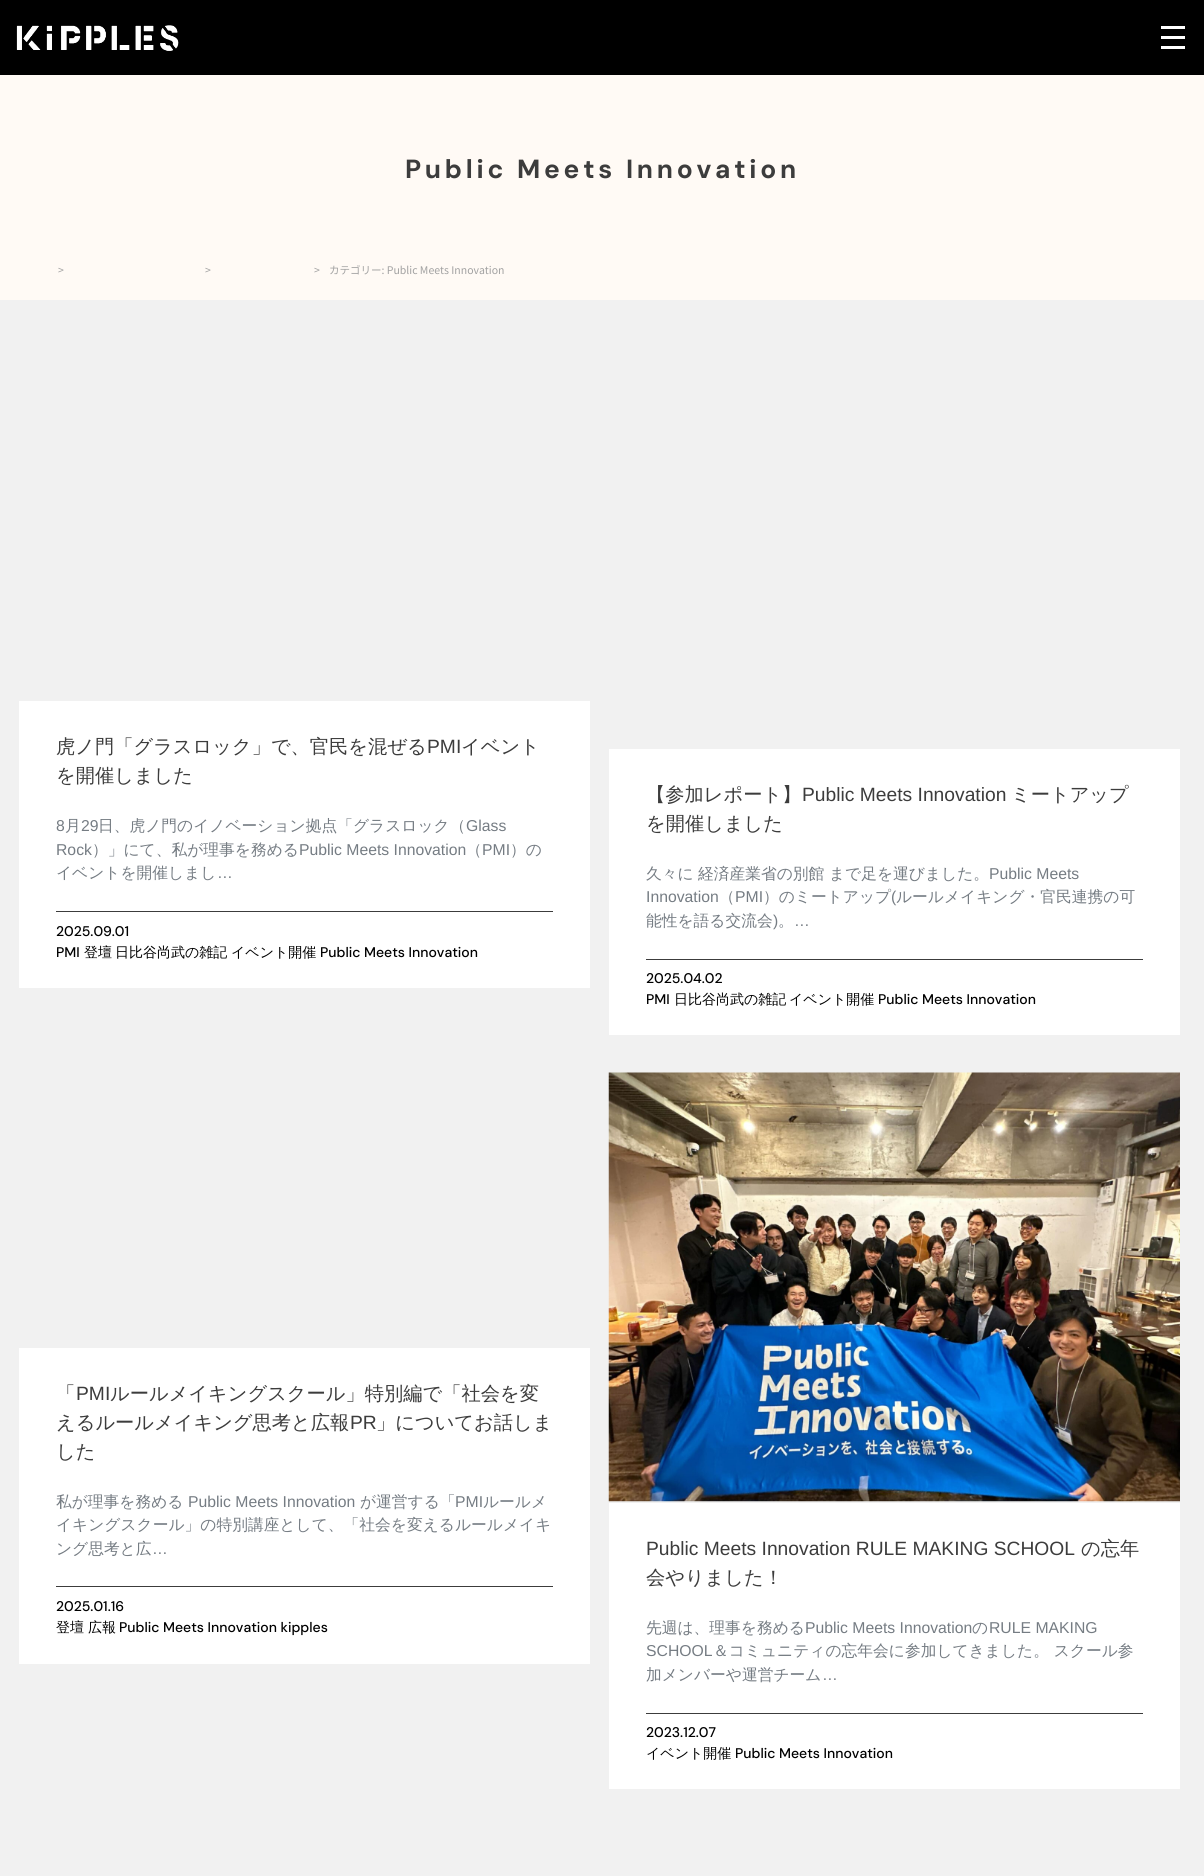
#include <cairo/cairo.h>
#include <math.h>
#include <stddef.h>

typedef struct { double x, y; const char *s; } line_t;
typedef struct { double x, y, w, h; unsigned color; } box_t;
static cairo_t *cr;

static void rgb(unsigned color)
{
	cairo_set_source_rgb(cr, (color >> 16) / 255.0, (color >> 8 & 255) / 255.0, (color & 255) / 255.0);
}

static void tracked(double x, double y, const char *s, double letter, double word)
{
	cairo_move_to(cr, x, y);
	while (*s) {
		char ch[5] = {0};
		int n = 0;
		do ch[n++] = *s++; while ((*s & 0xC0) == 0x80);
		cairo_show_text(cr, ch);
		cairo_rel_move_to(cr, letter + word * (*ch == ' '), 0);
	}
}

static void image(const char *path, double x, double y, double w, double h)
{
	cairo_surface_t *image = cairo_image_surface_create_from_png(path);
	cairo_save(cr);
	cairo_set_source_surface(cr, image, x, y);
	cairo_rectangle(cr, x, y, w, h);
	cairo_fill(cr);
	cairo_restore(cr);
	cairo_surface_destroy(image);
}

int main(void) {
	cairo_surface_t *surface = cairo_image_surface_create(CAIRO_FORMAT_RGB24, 1204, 1876);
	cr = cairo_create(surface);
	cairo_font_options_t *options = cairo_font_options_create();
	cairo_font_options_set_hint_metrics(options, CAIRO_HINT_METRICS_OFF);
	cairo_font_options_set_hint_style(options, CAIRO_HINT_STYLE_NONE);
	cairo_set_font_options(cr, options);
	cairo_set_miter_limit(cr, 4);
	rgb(0xfffaf5);
	cairo_paint(cr);
	rgb(0x000000);
	cairo_rectangle(cr, 0, 0, 1204, 75);
	cairo_fill(cr);
	image("img/1.png", 16, 25, 163, 26);
	{
		static const box_t items[] = {
			{1161, 26, 24, 3, 0xffffff},
			{1161, 36, 24, 3, 0xffffff},
			{1161, 46, 24, 3, 0xffffff},
			{0, 300, 1204, 1576, 0xf1f1f1},
			{19, 701, 571, 287, 0xffffff},
			{56, 911, 497, 1, 0x3c3c3c},
			{609, 749, 571, 286, 0xffffff},
			{646, 959, 497, 1, 0x3c3c3c},
			{19, 1348, 571, 316, 0xffffff},
			{56, 1586, 497, 1, 0x3c3c3c},
		};
		for (size_t i = 0; i < sizeof items / sizeof *items; i++) {
			rgb(items[i].color);
			cairo_rectangle(cr, items[i].x, items[i].y, items[i].w, items[i].h);
			cairo_fill(cr);
		}
	}
	image("img/2.png", 608, 1072, 572, 430);
	rgb(0xffffff);
	cairo_rectangle(cr, 609, 1503, 571, 286);
	cairo_fill(cr);
	rgb(0x3c3c3c);
	cairo_rectangle(cr, 646, 1713, 497, 1);
	cairo_fill(cr);
	cairo_select_font_face(cr, "DM Sans", CAIRO_FONT_SLANT_NORMAL, CAIRO_FONT_WEIGHT_BOLD);
	cairo_set_font_size(cr, 26.25);
	tracked(405, 178, "Public Meets Innovation", 3.75, 0);
	cairo_select_font_face(cr, "Noto Sans JP", CAIRO_FONT_SLANT_NORMAL, CAIRO_FONT_WEIGHT_NORMAL);
	cairo_set_font_size(cr, 10.5);
	rgb(0xa1a1a1);
	{
		static const line_t items[] = {
			{58, 274, ">"},
			{205, 274, ">"},
			{314, 274, ">"},
			{329, 274, "カテゴリー: Public Meets Innovation"},
		};
		for (size_t i = 0; i < sizeof items / sizeof *items; i++) {
			cairo_move_to(cr, items[i].x, items[i].y);
			cairo_show_text(cr, items[i].s);
		}
	}
	cairo_select_font_face(cr, "WenQuanYi Zen Hei Medium", CAIRO_FONT_SLANT_NORMAL, CAIRO_FONT_WEIGHT_NORMAL);
	cairo_set_font_size(cr, 19.25);
	rgb(0x3c3c3c);
	cairo_move_to(cr, 56, 753);
	cairo_show_text(cr, "虎ノ門「グラスロック」で、官民を混ぜる");
	cairo_select_font_face(cr, "Liberation Sans", CAIRO_FONT_SLANT_NORMAL, CAIRO_FONT_WEIGHT_NORMAL);
	cairo_move_to(cr, 427, 753);
	cairo_show_text(cr, "PMI");
	cairo_select_font_face(cr, "WenQuanYi Zen Hei Medium", CAIRO_FONT_SLANT_NORMAL, CAIRO_FONT_WEIGHT_NORMAL);
	cairo_move_to(cr, 461, 753);
	cairo_show_text(cr, "イベント");
	cairo_move_to(cr, 56, 782);
	cairo_show_text(cr, "を開催しました");
	cairo_select_font_face(cr, "Liberation Sans", CAIRO_FONT_SLANT_NORMAL, CAIRO_FONT_WEIGHT_NORMAL);
	cairo_set_font_size(cr, 15.75);
	rgb(0x757c83);
	cairo_move_to(cr, 56, 831);
	cairo_show_text(cr, "8");
	cairo_select_font_face(cr, "WenQuanYi Zen Hei Medium", CAIRO_FONT_SLANT_NORMAL, CAIRO_FONT_WEIGHT_NORMAL);
	cairo_move_to(cr, 65, 831);
	cairo_show_text(cr, "月");
	cairo_select_font_face(cr, "Liberation Sans", CAIRO_FONT_SLANT_NORMAL, CAIRO_FONT_WEIGHT_NORMAL);
	cairo_move_to(cr, 81, 831);
	cairo_show_text(cr, "29");
	cairo_select_font_face(cr, "WenQuanYi Zen Hei Medium", CAIRO_FONT_SLANT_NORMAL, CAIRO_FONT_WEIGHT_NORMAL);
	cairo_move_to(cr, 98, 831);
	cairo_show_text(cr, "日、虎ノ門のイノベーション拠点「グラスロック（");
	cairo_select_font_face(cr, "Liberation Sans", CAIRO_FONT_SLANT_NORMAL, CAIRO_FONT_WEIGHT_NORMAL);
	cairo_move_to(cr, 466, 831);
	cairo_show_text(cr, "Glass");
	cairo_move_to(cr, 56, 855);
	cairo_show_text(cr, "Rock");
	cairo_select_font_face(cr, "WenQuanYi Zen Hei Medium", CAIRO_FONT_SLANT_NORMAL, CAIRO_FONT_WEIGHT_NORMAL);
	cairo_move_to(cr, 92, 855);
	cairo_show_text(cr, "）」にて、私が理事を務める");
	cairo_select_font_face(cr, "Liberation Sans", CAIRO_FONT_SLANT_NORMAL, CAIRO_FONT_WEIGHT_NORMAL);
	cairo_move_to(cr, 299, 855);
	cairo_show_text(cr, "Public Meets Innovation");
	cairo_select_font_face(cr, "WenQuanYi Zen Hei Medium", CAIRO_FONT_SLANT_NORMAL, CAIRO_FONT_WEIGHT_NORMAL);
	cairo_move_to(cr, 466, 855);
	cairo_show_text(cr, "（");
	cairo_select_font_face(cr, "Liberation Sans", CAIRO_FONT_SLANT_NORMAL, CAIRO_FONT_WEIGHT_NORMAL);
	cairo_move_to(cr, 482, 855);
	cairo_show_text(cr, "PMI");
	cairo_select_font_face(cr, "WenQuanYi Zen Hei Medium", CAIRO_FONT_SLANT_NORMAL, CAIRO_FONT_WEIGHT_NORMAL);
	cairo_move_to(cr, 510, 855);
	cairo_show_text(cr, "）の");
	cairo_move_to(cr, 56, 878);
	cairo_show_text(cr, "イベントを開催しまし");
	cairo_select_font_face(cr, "Liberation Sans", CAIRO_FONT_SLANT_NORMAL, CAIRO_FONT_WEIGHT_NORMAL);
	cairo_move_to(cr, 217, 878);
	cairo_show_text(cr, "…");
	cairo_select_font_face(cr, "DM Sans Medium", CAIRO_FONT_SLANT_NORMAL, CAIRO_FONT_WEIGHT_NORMAL);
	cairo_set_font_size(cr, 14);
	rgb(0x000000);
	cairo_move_to(cr, 56, 936);
	cairo_show_text(cr, "2025.09.01");
	cairo_move_to(cr, 56, 957);
	cairo_show_text(cr, "PMI");
	cairo_select_font_face(cr, "WenQuanYi Zen Hei Medium", CAIRO_FONT_SLANT_NORMAL, CAIRO_FONT_WEIGHT_NORMAL);
	{
		static const line_t items[] = {
			{84, 957, "登壇"},
			{115, 957, "日比谷尚武の雑記"},
			{231, 957, "イベント開催"},
		};
		for (size_t i = 0; i < sizeof items / sizeof *items; i++) {
			cairo_move_to(cr, items[i].x, items[i].y);
			cairo_show_text(cr, items[i].s);
		}
	}
	cairo_select_font_face(cr, "DM Sans Medium", CAIRO_FONT_SLANT_NORMAL, CAIRO_FONT_WEIGHT_NORMAL);
	cairo_move_to(cr, 320, 957);
	cairo_show_text(cr, "Public Meets Innovation");
	cairo_select_font_face(cr, "WenQuanYi Zen Hei Medium", CAIRO_FONT_SLANT_NORMAL, CAIRO_FONT_WEIGHT_NORMAL);
	cairo_set_font_size(cr, 19.25);
	rgb(0x3c3c3c);
	cairo_move_to(cr, 646, 801);
	cairo_show_text(cr, "【参加レポート】");
	cairo_select_font_face(cr, "Liberation Sans", CAIRO_FONT_SLANT_NORMAL, CAIRO_FONT_WEIGHT_NORMAL);
	cairo_move_to(cr, 802, 801);
	cairo_show_text(cr, "Public Meets Innovation");
	cairo_select_font_face(cr, "WenQuanYi Zen Hei Medium", CAIRO_FONT_SLANT_NORMAL, CAIRO_FONT_WEIGHT_NORMAL);
	cairo_move_to(cr, 1011, 801);
	cairo_show_text(cr, "ミートアップ");
	cairo_move_to(cr, 646, 830);
	cairo_show_text(cr, "を開催しました");
	cairo_set_font_size(cr, 15.75);
	rgb(0x757c83);
	{
		static const line_t items[] = {
			{646, 879, "久々に"},
			{698, 879, "経済産業省の別館"},
			{829, 879, "まで足を運びました。"},
		};
		for (size_t i = 0; i < sizeof items / sizeof *items; i++) {
			cairo_move_to(cr, items[i].x, items[i].y);
			cairo_show_text(cr, items[i].s);
		}
	}
	cairo_select_font_face(cr, "Liberation Sans", CAIRO_FONT_SLANT_NORMAL, CAIRO_FONT_WEIGHT_NORMAL);
	cairo_move_to(cr, 989, 879);
	cairo_show_text(cr, "Public Meets");
	cairo_move_to(cr, 646, 902);
	cairo_show_text(cr, "Innovation");
	cairo_select_font_face(cr, "WenQuanYi Zen Hei Medium", CAIRO_FONT_SLANT_NORMAL, CAIRO_FONT_WEIGHT_NORMAL);
	cairo_move_to(cr, 719, 902);
	cairo_show_text(cr, "（");
	cairo_select_font_face(cr, "Liberation Sans", CAIRO_FONT_SLANT_NORMAL, CAIRO_FONT_WEIGHT_NORMAL);
	cairo_move_to(cr, 735, 902);
	cairo_show_text(cr, "PMI");
	cairo_select_font_face(cr, "WenQuanYi Zen Hei Medium", CAIRO_FONT_SLANT_NORMAL, CAIRO_FONT_WEIGHT_NORMAL);
	cairo_move_to(cr, 763, 902);
	cairo_show_text(cr, "）のミートアップ");
	cairo_select_font_face(cr, "Liberation Sans", CAIRO_FONT_SLANT_NORMAL, CAIRO_FONT_WEIGHT_NORMAL);
	cairo_move_to(cr, 891, 902);
	cairo_show_text(cr, "(");
	cairo_select_font_face(cr, "WenQuanYi Zen Hei Medium", CAIRO_FONT_SLANT_NORMAL, CAIRO_FONT_WEIGHT_NORMAL);
	cairo_move_to(cr, 896, 902);
	cairo_show_text(cr, "ルールメイキング・官民連携の可");
	cairo_move_to(cr, 646, 926);
	cairo_show_text(cr, "能性を語る交流会");
	cairo_select_font_face(cr, "Liberation Sans", CAIRO_FONT_SLANT_NORMAL, CAIRO_FONT_WEIGHT_NORMAL);
	cairo_move_to(cr, 773, 926);
	cairo_show_text(cr, ")");
	cairo_select_font_face(cr, "WenQuanYi Zen Hei Medium", CAIRO_FONT_SLANT_NORMAL, CAIRO_FONT_WEIGHT_NORMAL);
	cairo_move_to(cr, 778, 926);
	cairo_show_text(cr, "。");
	cairo_select_font_face(cr, "Liberation Sans", CAIRO_FONT_SLANT_NORMAL, CAIRO_FONT_WEIGHT_NORMAL);
	cairo_move_to(cr, 794, 926);
	cairo_show_text(cr, "…");
	cairo_select_font_face(cr, "DM Sans Medium", CAIRO_FONT_SLANT_NORMAL, CAIRO_FONT_WEIGHT_NORMAL);
	cairo_set_font_size(cr, 14);
	rgb(0x000000);
	cairo_move_to(cr, 646, 983);
	cairo_show_text(cr, "2025.04.02");
	cairo_move_to(cr, 646, 1004);
	cairo_show_text(cr, "PMI");
	cairo_select_font_face(cr, "WenQuanYi Zen Hei Medium", CAIRO_FONT_SLANT_NORMAL, CAIRO_FONT_WEIGHT_NORMAL);
	cairo_move_to(cr, 674, 1004);
	cairo_show_text(cr, "日比谷尚武の雑記");
	cairo_move_to(cr, 789, 1004);
	cairo_show_text(cr, "イベント開催");
	cairo_select_font_face(cr, "DM Sans Medium", CAIRO_FONT_SLANT_NORMAL, CAIRO_FONT_WEIGHT_NORMAL);
	cairo_move_to(cr, 878, 1004);
	cairo_show_text(cr, "Public Meets Innovation");
	cairo_select_font_face(cr, "WenQuanYi Zen Hei Medium", CAIRO_FONT_SLANT_NORMAL, CAIRO_FONT_WEIGHT_NORMAL);
	cairo_set_font_size(cr, 19.25);
	rgb(0x3c3c3c);
	cairo_move_to(cr, 56, 1400);
	cairo_show_text(cr, "「");
	cairo_select_font_face(cr, "Liberation Sans", CAIRO_FONT_SLANT_NORMAL, CAIRO_FONT_WEIGHT_NORMAL);
	cairo_move_to(cr, 76, 1400);
	cairo_show_text(cr, "PMI");
	cairo_select_font_face(cr, "WenQuanYi Zen Hei Medium", CAIRO_FONT_SLANT_NORMAL, CAIRO_FONT_WEIGHT_NORMAL);
	cairo_move_to(cr, 110, 1400);
	cairo_show_text(cr, "ルールメイキングスクール」特別編で「社会を変");
	cairo_move_to(cr, 56, 1429);
	cairo_show_text(cr, "えるルールメイキング思考と広報");
	cairo_select_font_face(cr, "Liberation Sans", CAIRO_FONT_SLANT_NORMAL, CAIRO_FONT_WEIGHT_NORMAL);
	cairo_move_to(cr, 350, 1429);
	cairo_show_text(cr, "PR");
	cairo_select_font_face(cr, "WenQuanYi Zen Hei Medium", CAIRO_FONT_SLANT_NORMAL, CAIRO_FONT_WEIGHT_NORMAL);
	cairo_move_to(cr, 376, 1429);
	cairo_show_text(cr, "」についてお話しま");
	cairo_move_to(cr, 56, 1458);
	cairo_show_text(cr, "した");
	cairo_set_font_size(cr, 15.75);
	rgb(0x757c83);
	cairo_move_to(cr, 56, 1507);
	cairo_show_text(cr, "私が理事を務める");
	cairo_select_font_face(cr, "Liberation Sans", CAIRO_FONT_SLANT_NORMAL, CAIRO_FONT_WEIGHT_NORMAL);
	cairo_move_to(cr, 188, 1507);
	cairo_show_text(cr, "Public Meets Innovation");
	cairo_select_font_face(cr, "WenQuanYi Zen Hei Medium", CAIRO_FONT_SLANT_NORMAL, CAIRO_FONT_WEIGHT_NORMAL);
	cairo_move_to(cr, 360, 1507);
	cairo_show_text(cr, "が運営する「");
	cairo_select_font_face(cr, "Liberation Sans", CAIRO_FONT_SLANT_NORMAL, CAIRO_FONT_WEIGHT_NORMAL);
	cairo_move_to(cr, 455, 1507);
	cairo_show_text(cr, "PMI");
	cairo_select_font_face(cr, "WenQuanYi Zen Hei Medium", CAIRO_FONT_SLANT_NORMAL, CAIRO_FONT_WEIGHT_NORMAL);
	{
		static const line_t items[] = {
			{483, 1507, "ルールメ"},
			{56, 1530, "イキングスクール」の特別講座として、「社会を変えるルールメイキ"},
			{56, 1554, "ング思考と広"},
		};
		for (size_t i = 0; i < sizeof items / sizeof *items; i++) {
			cairo_move_to(cr, items[i].x, items[i].y);
			cairo_show_text(cr, items[i].s);
		}
	}
	cairo_select_font_face(cr, "Liberation Sans", CAIRO_FONT_SLANT_NORMAL, CAIRO_FONT_WEIGHT_NORMAL);
	cairo_move_to(cr, 152, 1554);
	cairo_show_text(cr, "…");
	cairo_select_font_face(cr, "DM Sans Medium", CAIRO_FONT_SLANT_NORMAL, CAIRO_FONT_WEIGHT_NORMAL);
	cairo_set_font_size(cr, 14);
	rgb(0x000000);
	cairo_move_to(cr, 56, 1611);
	cairo_show_text(cr, "2025.01.16");
	cairo_select_font_face(cr, "WenQuanYi Zen Hei Medium", CAIRO_FONT_SLANT_NORMAL, CAIRO_FONT_WEIGHT_NORMAL);
	cairo_move_to(cr, 56, 1632);
	cairo_show_text(cr, "登壇");
	cairo_move_to(cr, 88, 1632);
	cairo_show_text(cr, "広報");
	cairo_select_font_face(cr, "DM Sans Medium", CAIRO_FONT_SLANT_NORMAL, CAIRO_FONT_WEIGHT_NORMAL);
	cairo_move_to(cr, 119, 1632);
	cairo_show_text(cr, "Public Meets Innovation kipples");
	cairo_select_font_face(cr, "Liberation Sans", CAIRO_FONT_SLANT_NORMAL, CAIRO_FONT_WEIGHT_NORMAL);
	cairo_set_font_size(cr, 19.25);
	rgb(0x3c3c3c);
	cairo_move_to(cr, 646, 1555);
	cairo_show_text(cr, "Public Meets Innovation RULE MAKING SCHOOL");
	cairo_select_font_face(cr, "WenQuanYi Zen Hei Medium", CAIRO_FONT_SLANT_NORMAL, CAIRO_FONT_WEIGHT_NORMAL);
	cairo_move_to(cr, 1081, 1555);
	cairo_show_text(cr, "の忘年");
	cairo_move_to(cr, 646, 1584);
	cairo_show_text(cr, "会やりました！");
	cairo_set_font_size(cr, 15.75);
	rgb(0x757c83);
	cairo_move_to(cr, 646, 1633);
	cairo_show_text(cr, "先週は、理事を務める");
	cairo_select_font_face(cr, "Liberation Sans", CAIRO_FONT_SLANT_NORMAL, CAIRO_FONT_WEIGHT_NORMAL);
	cairo_move_to(cr, 805, 1633);
	cairo_show_text(cr, "Public Meets Innovation");
	cairo_select_font_face(cr, "WenQuanYi Zen Hei Medium", CAIRO_FONT_SLANT_NORMAL, CAIRO_FONT_WEIGHT_NORMAL);
	cairo_move_to(cr, 972, 1633);
	cairo_show_text(cr, "の");
	cairo_select_font_face(cr, "Liberation Sans", CAIRO_FONT_SLANT_NORMAL, CAIRO_FONT_WEIGHT_NORMAL);
	cairo_move_to(cr, 989, 1633);
	cairo_show_text(cr, "RULE MAKING");
	cairo_move_to(cr, 646, 1656);
	cairo_show_text(cr, "SCHOOL");
	cairo_select_font_face(cr, "WenQuanYi Zen Hei Medium", CAIRO_FONT_SLANT_NORMAL, CAIRO_FONT_WEIGHT_NORMAL);
	cairo_move_to(cr, 713, 1656);
	cairo_show_text(cr, "＆コミュニティの忘年会に参加してきました。 スクール参");
	cairo_move_to(cr, 646, 1680);
	cairo_show_text(cr, "加メンバーや運営チーム");
	cairo_select_font_face(cr, "Liberation Sans", CAIRO_FONT_SLANT_NORMAL, CAIRO_FONT_WEIGHT_NORMAL);
	cairo_move_to(cr, 822, 1680);
	cairo_show_text(cr, "…");
	cairo_select_font_face(cr, "DM Sans Medium", CAIRO_FONT_SLANT_NORMAL, CAIRO_FONT_WEIGHT_NORMAL);
	cairo_set_font_size(cr, 14);
	rgb(0x000000);
	cairo_move_to(cr, 646, 1737);
	cairo_show_text(cr, "2023.12.07");
	cairo_select_font_face(cr, "WenQuanYi Zen Hei Medium", CAIRO_FONT_SLANT_NORMAL, CAIRO_FONT_WEIGHT_NORMAL);
	cairo_move_to(cr, 646, 1758);
	cairo_show_text(cr, "イベント開催");
	cairo_select_font_face(cr, "DM Sans Medium", CAIRO_FONT_SLANT_NORMAL, CAIRO_FONT_WEIGHT_NORMAL);
	cairo_move_to(cr, 735, 1758);
	cairo_show_text(cr, "Public Meets Innovation");
	cairo_surface_write_to_png(surface, "page.png");
	cairo_font_options_destroy(options);
	cairo_destroy(cr);
	cairo_surface_destroy(surface);
	return 0;
}
